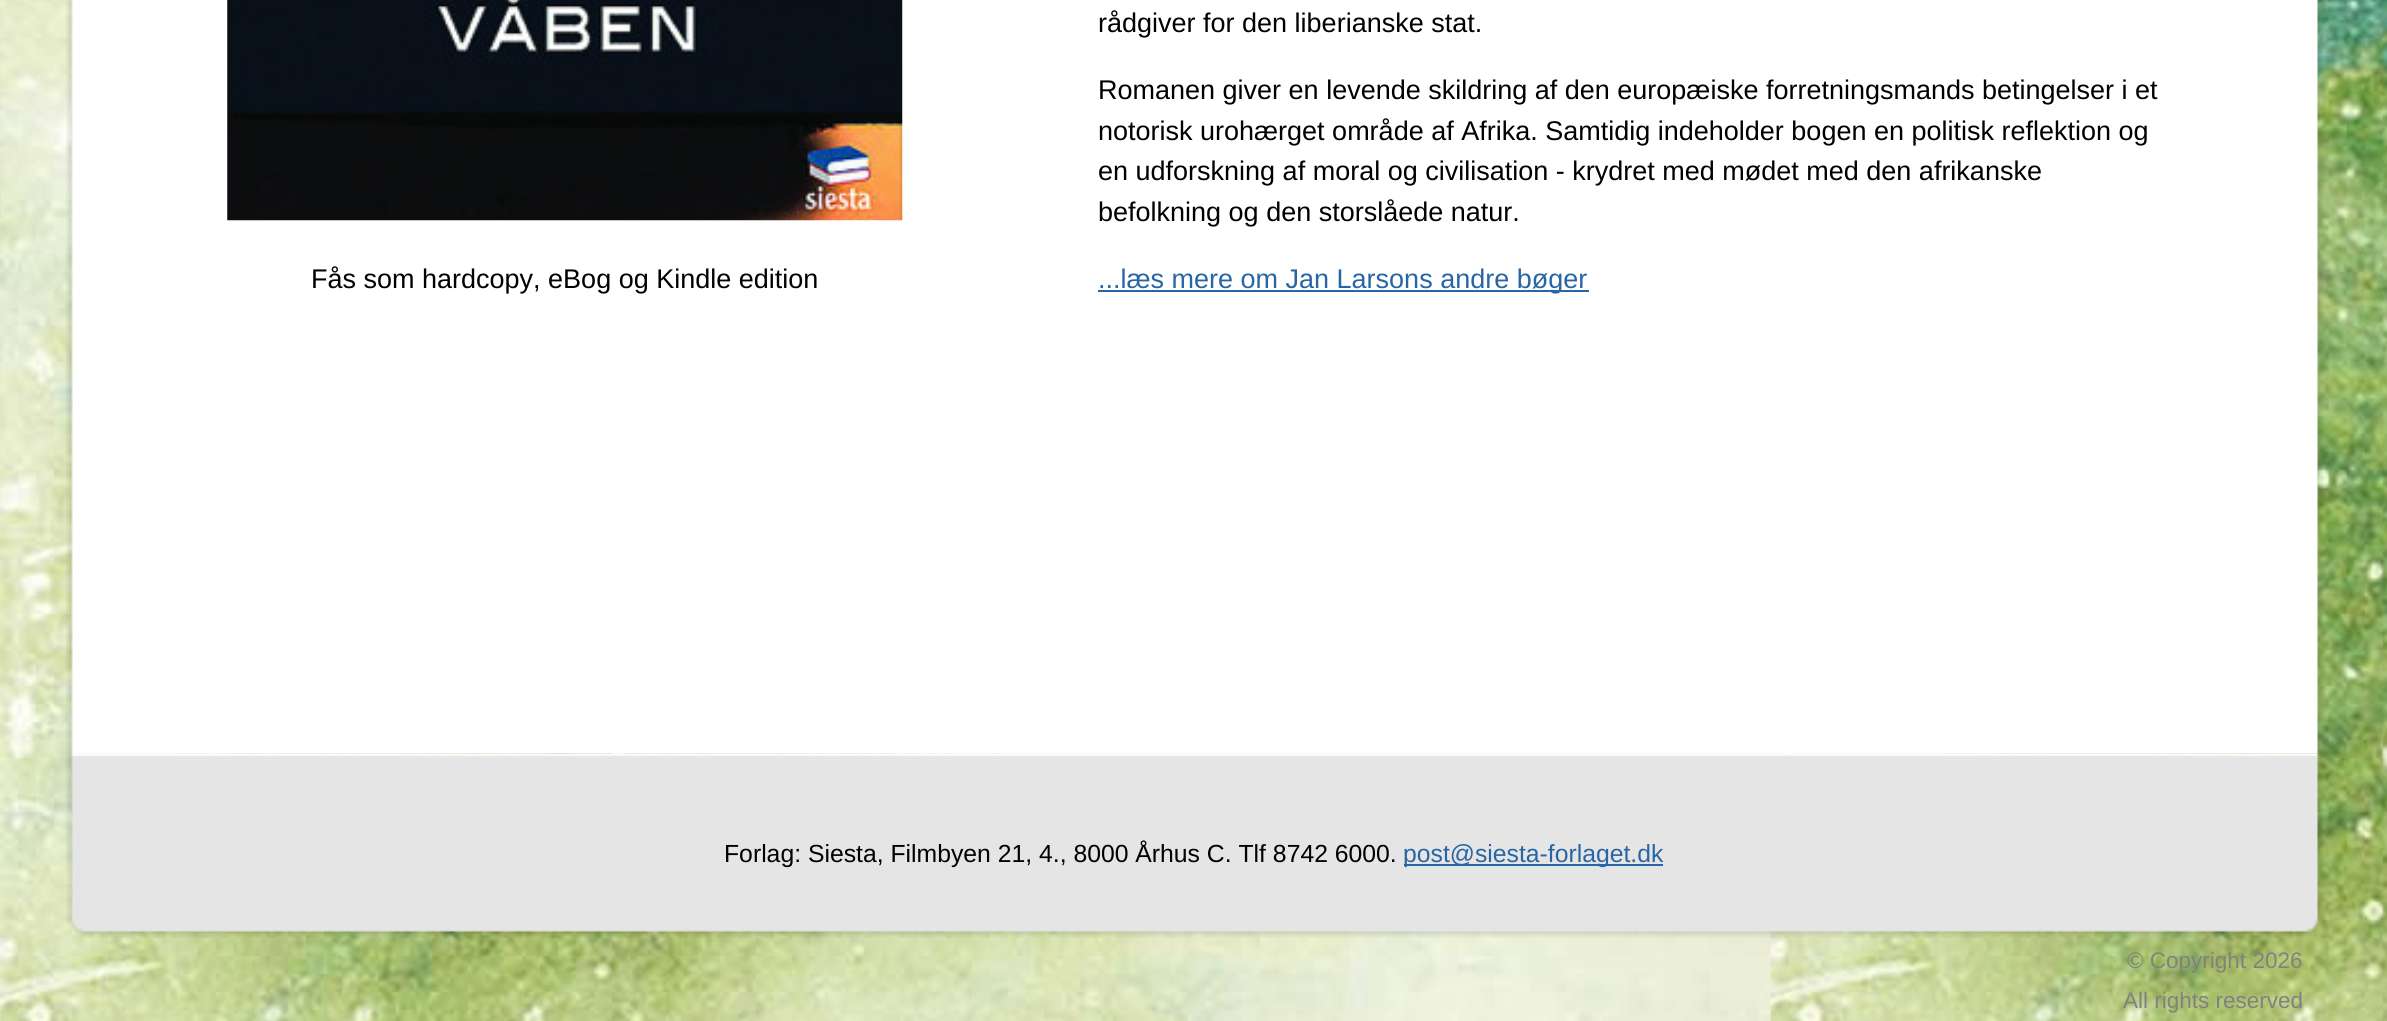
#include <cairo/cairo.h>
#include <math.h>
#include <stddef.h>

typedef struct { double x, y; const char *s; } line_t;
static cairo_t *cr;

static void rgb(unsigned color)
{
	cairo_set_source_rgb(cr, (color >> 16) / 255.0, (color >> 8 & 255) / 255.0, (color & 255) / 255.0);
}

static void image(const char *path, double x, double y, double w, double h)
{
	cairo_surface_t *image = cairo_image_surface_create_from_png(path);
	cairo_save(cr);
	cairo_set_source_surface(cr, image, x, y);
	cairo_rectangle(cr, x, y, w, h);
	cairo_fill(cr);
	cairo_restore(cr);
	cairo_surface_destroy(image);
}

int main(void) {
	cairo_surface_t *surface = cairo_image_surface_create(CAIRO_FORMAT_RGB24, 2387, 1021);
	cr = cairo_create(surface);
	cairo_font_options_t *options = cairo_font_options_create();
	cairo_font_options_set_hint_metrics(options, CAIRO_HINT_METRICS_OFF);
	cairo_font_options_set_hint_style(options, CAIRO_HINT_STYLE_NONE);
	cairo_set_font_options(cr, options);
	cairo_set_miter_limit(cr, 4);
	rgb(0xffffff);
	cairo_paint(cr);
	image("img/1.png", 0, 0, 2387, 1021);
	image("img/2.png", 66, 0, 2258, 754);
	image("img/3.png", 227, 0, 676, 221);
	rgb(0x2765a4);
	cairo_rectangle(cr, 1098, 290, 491, 2);
	cairo_fill(cr);
	image("img/4.png", 66, 753, 2258, 185);
	cairo_rectangle(cr, 1404, 864, 259, 2);
	cairo_fill(cr);
	cairo_select_font_face(cr, "Liberation Sans", CAIRO_FONT_SLANT_NORMAL, CAIRO_FONT_WEIGHT_NORMAL);
	cairo_set_font_size(cr, 27);
	rgb(0x000000);
	{
		static const line_t items[] = {
			{311, 288, "Fås som hardcopy, eBog og Kindle edition"},
			{1098, 32, "rådgiver for den liberianske stat."},
			{1098, 99, "Romanen giver en levende skildring af den europæiske forretningsmands betingelser i et"},
			{1098, 140, "notorisk urohærget område af Afrika. Samtidig indeholder bogen en politisk reflektion og"},
			{1098, 180, "en udforskning af moral og civilisation - krydret med mødet med den afrikanske"},
			{1098, 221, "befolkning og den storslåede natur."},
		};
		for (size_t i = 0; i < sizeof items / sizeof *items; i++) {
			cairo_move_to(cr, items[i].x, items[i].y);
			cairo_show_text(cr, items[i].s);
		}
	}
	rgb(0x2765a4);
	cairo_move_to(cr, 1098, 288);
	cairo_show_text(cr, "...læs mere om Jan Larsons andre bøger");
	cairo_set_font_size(cr, 24.75);
	rgb(0x000000);
	cairo_move_to(cr, 724, 862);
	cairo_show_text(cr, "Forlag: Siesta, Filmbyen 21, 4., 8000 Århus C. Tlf 8742 6000.");
	rgb(0x2765a4);
	cairo_move_to(cr, 1403, 862);
	cairo_show_text(cr, "post@siesta-forlaget.dk");
	cairo_set_font_size(cr, 22.5);
	rgb(0x818181);
	cairo_move_to(cr, 2127, 968);
	cairo_show_text(cr, "© Copyright 2026");
	cairo_move_to(cr, 2123, 1008);
	cairo_show_text(cr, "All rights reserved");
	cairo_surface_write_to_png(surface, "page.png");
	cairo_font_options_destroy(options);
	cairo_destroy(cr);
	cairo_surface_destroy(surface);
	return 0;
}
